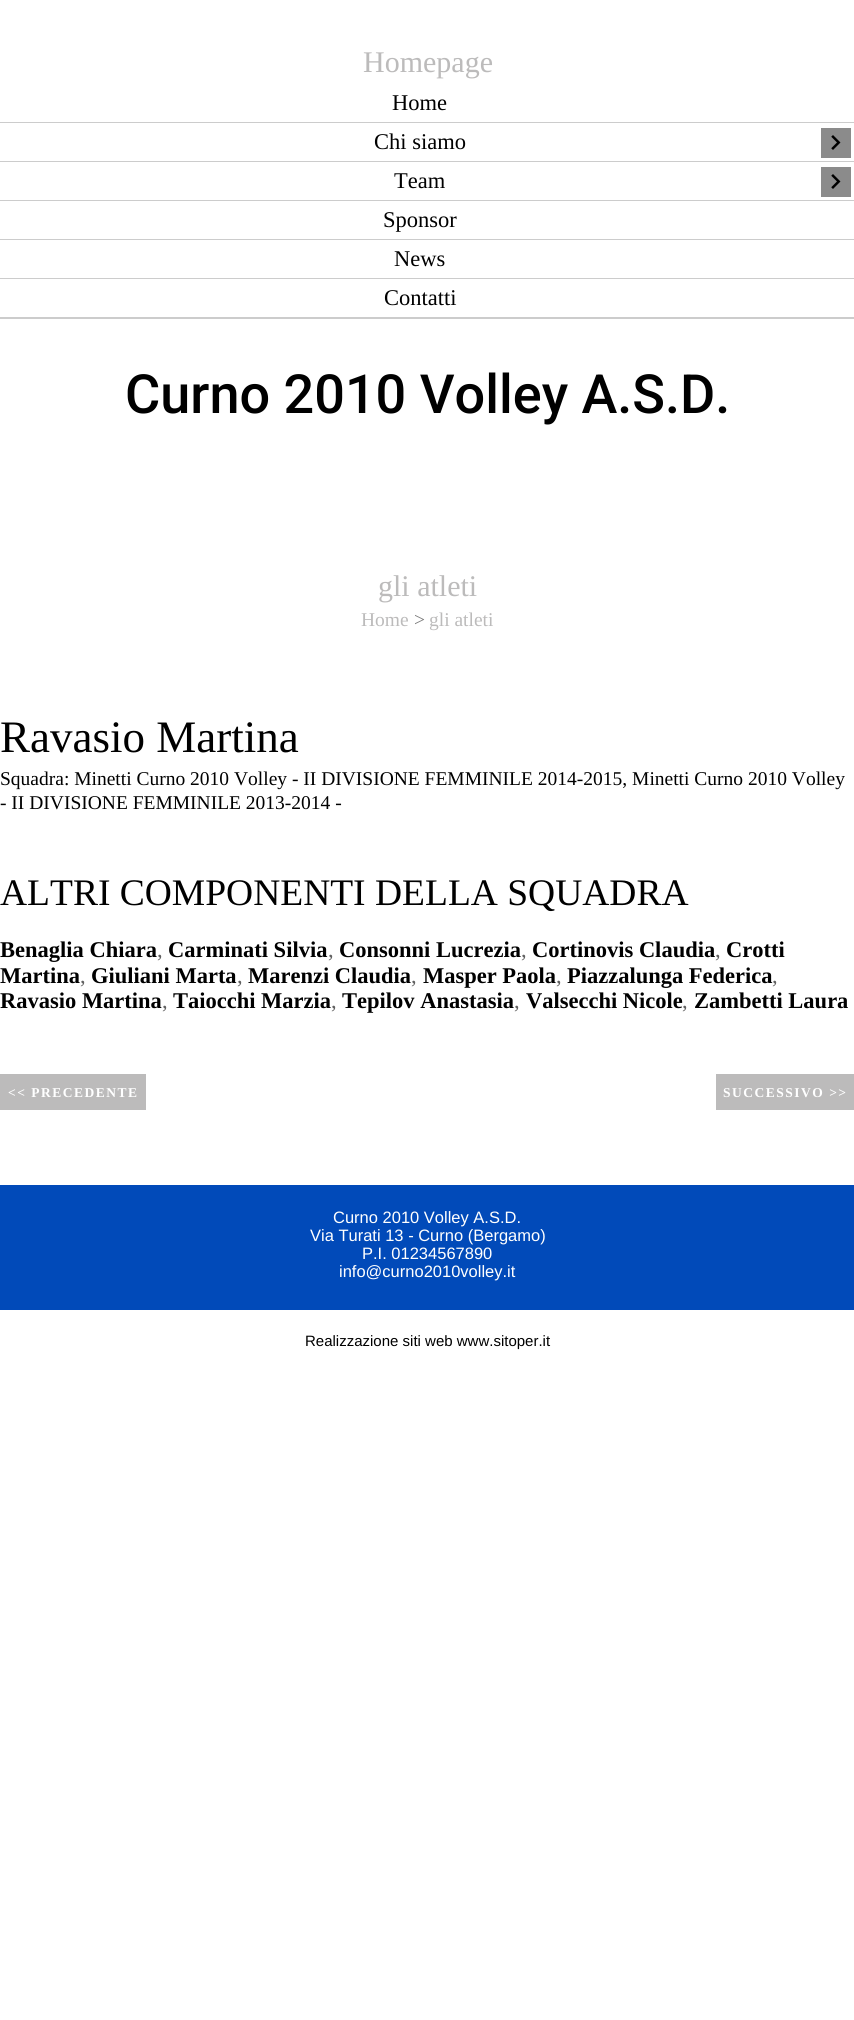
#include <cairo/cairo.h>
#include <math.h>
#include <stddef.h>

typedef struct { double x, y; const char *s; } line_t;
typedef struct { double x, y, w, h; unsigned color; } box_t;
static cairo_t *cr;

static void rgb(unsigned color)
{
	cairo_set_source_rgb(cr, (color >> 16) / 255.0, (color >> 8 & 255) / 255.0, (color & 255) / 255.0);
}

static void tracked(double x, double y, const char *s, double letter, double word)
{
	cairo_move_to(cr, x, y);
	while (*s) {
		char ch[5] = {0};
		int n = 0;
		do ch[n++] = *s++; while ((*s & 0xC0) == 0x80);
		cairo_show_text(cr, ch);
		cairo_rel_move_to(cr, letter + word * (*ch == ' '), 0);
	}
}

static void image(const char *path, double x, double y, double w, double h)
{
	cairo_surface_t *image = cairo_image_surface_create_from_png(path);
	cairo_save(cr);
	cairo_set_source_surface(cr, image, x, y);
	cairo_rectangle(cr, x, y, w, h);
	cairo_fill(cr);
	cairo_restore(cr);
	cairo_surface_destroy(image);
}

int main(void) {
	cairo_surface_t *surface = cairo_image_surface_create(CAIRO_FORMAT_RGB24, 854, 2020);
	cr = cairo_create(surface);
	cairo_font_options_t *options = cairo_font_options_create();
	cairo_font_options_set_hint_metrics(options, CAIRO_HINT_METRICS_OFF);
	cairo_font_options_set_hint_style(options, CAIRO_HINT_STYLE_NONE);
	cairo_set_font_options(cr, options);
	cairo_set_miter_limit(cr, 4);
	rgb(0xffffff);
	cairo_paint(cr);
	{
		static const box_t items[] = {
			{0, 122, 854, 1, 0xcccccc},
			{0, 161, 854, 1, 0xcccccc},
			{821, 128, 30, 30, 0x8b8b8b},
		};
		for (size_t i = 0; i < sizeof items / sizeof *items; i++) {
			rgb(items[i].color);
			cairo_rectangle(cr, items[i].x, items[i].y, items[i].w, items[i].h);
			cairo_fill(cr);
		}
	}
	image("img/1.png", 831, 135, 10, 15);
	rgb(0xcccccc);
	cairo_rectangle(cr, 0, 200, 854, 1);
	cairo_fill(cr);
	rgb(0x8b8b8b);
	cairo_rectangle(cr, 821, 167, 30, 30);
	cairo_fill(cr);
	image("img/1.png", 831, 174, 10, 15);
	{
		static const box_t items[] = {
			{0, 239, 854, 1, 0xcccccc},
			{0, 278, 854, 1, 0xcccccc},
			{0, 317, 854, 2, 0xcccccc},
			{0, 1074, 146, 36, 0xbcbbbb},
			{716, 1074, 138, 36, 0xbcbbbb},
			{0, 1185, 854, 125, 0x014ab9},
		};
		for (size_t i = 0; i < sizeof items / sizeof *items; i++) {
			rgb(items[i].color);
			cairo_rectangle(cr, items[i].x, items[i].y, items[i].w, items[i].h);
			cairo_fill(cr);
		}
	}
	cairo_select_font_face(cr, "Liberation Serif", CAIRO_FONT_SLANT_NORMAL, CAIRO_FONT_WEIGHT_NORMAL);
	cairo_set_font_size(cr, 30);
	rgb(0xbcbbbb);
	cairo_move_to(cr, 363, 72);
	cairo_show_text(cr, "Homepage");
	cairo_set_font_size(cr, 22.5);
	rgb(0x000000);
	{
		static const line_t items[] = {
			{392, 110, "Home"},
			{374, 149, "Chi siamo"},
			{394, 188, "Team"},
			{383, 227, "Sponsor"},
			{394, 266, "News"},
			{384, 305, "Contatti"},
		};
		for (size_t i = 0; i < sizeof items / sizeof *items; i++) {
			cairo_move_to(cr, items[i].x, items[i].y);
			cairo_show_text(cr, items[i].s);
		}
	}
	cairo_select_font_face(cr, "Roboto Medium", CAIRO_FONT_SLANT_NORMAL, CAIRO_FONT_WEIGHT_NORMAL);
	cairo_set_font_size(cr, 54);
	cairo_move_to(cr, 125, 413);
	cairo_show_text(cr, "Curno 2010 Volley A.S.D.");
	cairo_select_font_face(cr, "Liberation Serif", CAIRO_FONT_SLANT_NORMAL, CAIRO_FONT_WEIGHT_NORMAL);
	cairo_set_font_size(cr, 30);
	rgb(0xbcbbbb);
	cairo_move_to(cr, 378, 596);
	cairo_show_text(cr, "gli atleti");
	cairo_set_font_size(cr, 19.5);
	cairo_move_to(cr, 361, 626);
	cairo_show_text(cr, "Home");
	rgb(0x7a7a7a);
	cairo_move_to(cr, 414, 626);
	cairo_show_text(cr, ">");
	rgb(0xbcbbbb);
	cairo_move_to(cr, 429, 626);
	cairo_show_text(cr, "gli atleti");
	cairo_set_font_size(cr, 45);
	rgb(0x000000);
	cairo_move_to(cr, 0, 752);
	cairo_show_text(cr, "Ravasio Martina");
	cairo_set_font_size(cr, 19.5);
	cairo_move_to(cr, 0, 785);
	cairo_show_text(cr, "Squadra: Minetti Curno 2010 Volley - II DIVISIONE FEMMINILE 2014-2015, Minetti Curno 2010 Volley");
	cairo_move_to(cr, 0, 809);
	cairo_show_text(cr, "- II DIVISIONE FEMMINILE 2013-2014 -");
	cairo_set_font_size(cr, 37.5);
	cairo_move_to(cr, 0, 905);
	cairo_show_text(cr, "ALTRI COMPONENTI DELLA SQUADRA");
	cairo_select_font_face(cr, "Liberation Serif", CAIRO_FONT_SLANT_NORMAL, CAIRO_FONT_WEIGHT_BOLD);
	cairo_set_font_size(cr, 22.5);
	cairo_move_to(cr, 0, 957);
	cairo_show_text(cr, "Benaglia Chiara");
	cairo_select_font_face(cr, "Liberation Serif", CAIRO_FONT_SLANT_NORMAL, CAIRO_FONT_WEIGHT_NORMAL);
	rgb(0x616161);
	cairo_move_to(cr, 157, 957);
	cairo_show_text(cr, ",");
	cairo_select_font_face(cr, "Liberation Serif", CAIRO_FONT_SLANT_NORMAL, CAIRO_FONT_WEIGHT_BOLD);
	rgb(0x000000);
	cairo_move_to(cr, 168, 957);
	cairo_show_text(cr, "Carminati Silvia");
	cairo_select_font_face(cr, "Liberation Serif", CAIRO_FONT_SLANT_NORMAL, CAIRO_FONT_WEIGHT_NORMAL);
	rgb(0x616161);
	cairo_move_to(cr, 328, 957);
	cairo_show_text(cr, ",");
	cairo_select_font_face(cr, "Liberation Serif", CAIRO_FONT_SLANT_NORMAL, CAIRO_FONT_WEIGHT_BOLD);
	rgb(0x000000);
	cairo_move_to(cr, 339, 957);
	cairo_show_text(cr, "Consonni Lucrezia");
	cairo_select_font_face(cr, "Liberation Serif", CAIRO_FONT_SLANT_NORMAL, CAIRO_FONT_WEIGHT_NORMAL);
	rgb(0x616161);
	cairo_move_to(cr, 521, 957);
	cairo_show_text(cr, ",");
	cairo_select_font_face(cr, "Liberation Serif", CAIRO_FONT_SLANT_NORMAL, CAIRO_FONT_WEIGHT_BOLD);
	rgb(0x000000);
	cairo_move_to(cr, 532, 957);
	cairo_show_text(cr, "Cortinovis Claudia");
	cairo_select_font_face(cr, "Liberation Serif", CAIRO_FONT_SLANT_NORMAL, CAIRO_FONT_WEIGHT_NORMAL);
	rgb(0x616161);
	cairo_move_to(cr, 715, 957);
	cairo_show_text(cr, ",");
	cairo_select_font_face(cr, "Liberation Serif", CAIRO_FONT_SLANT_NORMAL, CAIRO_FONT_WEIGHT_BOLD);
	rgb(0x000000);
	cairo_move_to(cr, 726, 957);
	cairo_show_text(cr, "Crotti");
	cairo_move_to(cr, 0, 983);
	cairo_show_text(cr, "Martina");
	cairo_select_font_face(cr, "Liberation Serif", CAIRO_FONT_SLANT_NORMAL, CAIRO_FONT_WEIGHT_NORMAL);
	rgb(0x616161);
	cairo_move_to(cr, 80, 983);
	cairo_show_text(cr, ",");
	cairo_select_font_face(cr, "Liberation Serif", CAIRO_FONT_SLANT_NORMAL, CAIRO_FONT_WEIGHT_BOLD);
	rgb(0x000000);
	cairo_move_to(cr, 91, 983);
	cairo_show_text(cr, "Giuliani Marta");
	cairo_select_font_face(cr, "Liberation Serif", CAIRO_FONT_SLANT_NORMAL, CAIRO_FONT_WEIGHT_NORMAL);
	rgb(0x616161);
	cairo_move_to(cr, 237, 983);
	cairo_show_text(cr, ",");
	cairo_select_font_face(cr, "Liberation Serif", CAIRO_FONT_SLANT_NORMAL, CAIRO_FONT_WEIGHT_BOLD);
	rgb(0x000000);
	cairo_move_to(cr, 248, 983);
	cairo_show_text(cr, "Marenzi Claudia");
	cairo_select_font_face(cr, "Liberation Serif", CAIRO_FONT_SLANT_NORMAL, CAIRO_FONT_WEIGHT_NORMAL);
	rgb(0x616161);
	cairo_move_to(cr, 411, 983);
	cairo_show_text(cr, ",");
	cairo_select_font_face(cr, "Liberation Serif", CAIRO_FONT_SLANT_NORMAL, CAIRO_FONT_WEIGHT_BOLD);
	rgb(0x000000);
	cairo_move_to(cr, 423, 983);
	cairo_show_text(cr, "Masper Paola");
	cairo_select_font_face(cr, "Liberation Serif", CAIRO_FONT_SLANT_NORMAL, CAIRO_FONT_WEIGHT_NORMAL);
	rgb(0x616161);
	cairo_move_to(cr, 556, 983);
	cairo_show_text(cr, ",");
	cairo_select_font_face(cr, "Liberation Serif", CAIRO_FONT_SLANT_NORMAL, CAIRO_FONT_WEIGHT_BOLD);
	rgb(0x000000);
	cairo_move_to(cr, 567, 983);
	cairo_show_text(cr, "Piazzalunga Federica");
	cairo_select_font_face(cr, "Liberation Serif", CAIRO_FONT_SLANT_NORMAL, CAIRO_FONT_WEIGHT_NORMAL);
	rgb(0x616161);
	cairo_move_to(cr, 772, 983);
	cairo_show_text(cr, ",");
	cairo_select_font_face(cr, "Liberation Serif", CAIRO_FONT_SLANT_NORMAL, CAIRO_FONT_WEIGHT_BOLD);
	rgb(0x000000);
	cairo_move_to(cr, 0, 1008);
	cairo_show_text(cr, "Ravasio Martina");
	cairo_select_font_face(cr, "Liberation Serif", CAIRO_FONT_SLANT_NORMAL, CAIRO_FONT_WEIGHT_NORMAL);
	rgb(0x616161);
	cairo_move_to(cr, 162, 1008);
	cairo_show_text(cr, ",");
	cairo_select_font_face(cr, "Liberation Serif", CAIRO_FONT_SLANT_NORMAL, CAIRO_FONT_WEIGHT_BOLD);
	rgb(0x000000);
	cairo_move_to(cr, 173, 1008);
	cairo_show_text(cr, "Taiocchi Marzia");
	cairo_select_font_face(cr, "Liberation Serif", CAIRO_FONT_SLANT_NORMAL, CAIRO_FONT_WEIGHT_NORMAL);
	rgb(0x616161);
	cairo_move_to(cr, 331, 1008);
	cairo_show_text(cr, ",");
	cairo_select_font_face(cr, "Liberation Serif", CAIRO_FONT_SLANT_NORMAL, CAIRO_FONT_WEIGHT_BOLD);
	rgb(0x000000);
	cairo_move_to(cr, 342, 1008);
	cairo_show_text(cr, "Tepilov Anastasia");
	cairo_select_font_face(cr, "Liberation Serif", CAIRO_FONT_SLANT_NORMAL, CAIRO_FONT_WEIGHT_NORMAL);
	rgb(0x616161);
	cairo_move_to(cr, 514, 1008);
	cairo_show_text(cr, ",");
	cairo_select_font_face(cr, "Liberation Serif", CAIRO_FONT_SLANT_NORMAL, CAIRO_FONT_WEIGHT_BOLD);
	rgb(0x000000);
	cairo_move_to(cr, 526, 1008);
	cairo_show_text(cr, "Valsecchi Nicole");
	cairo_select_font_face(cr, "Liberation Serif", CAIRO_FONT_SLANT_NORMAL, CAIRO_FONT_WEIGHT_NORMAL);
	rgb(0x616161);
	cairo_move_to(cr, 682, 1008);
	cairo_show_text(cr, ",");
	cairo_select_font_face(cr, "Liberation Serif", CAIRO_FONT_SLANT_NORMAL, CAIRO_FONT_WEIGHT_BOLD);
	rgb(0x000000);
	cairo_move_to(cr, 694, 1008);
	cairo_show_text(cr, "Zambetti Laura");
	cairo_set_font_size(cr, 13.5);
	rgb(0xffffff);
	tracked(8, 1097, "<< PRECEDENTE", 1.5, 0);
	tracked(723, 1097, "SUCCESSIVO >>", 1.5, 0);
	cairo_select_font_face(cr, "Liberation Sans", CAIRO_FONT_SLANT_NORMAL, CAIRO_FONT_WEIGHT_NORMAL);
	cairo_set_font_size(cr, 16.5);
	{
		static const line_t items[] = {
			{333, 1223, "Curno 2010 Volley A.S.D."},
			{310, 1241, "Via Turati 13 - Curno (Bergamo)"},
			{362, 1259, "P.I. 01234567890"},
			{339, 1277, "info@curno2010volley.it"},
		};
		for (size_t i = 0; i < sizeof items / sizeof *items; i++) {
			cairo_move_to(cr, items[i].x, items[i].y);
			cairo_show_text(cr, items[i].s);
		}
	}
	cairo_set_font_size(cr, 15);
	rgb(0x000000);
	cairo_move_to(cr, 305, 1346);
	cairo_show_text(cr, "Realizzazione siti web www.sitoper.it");
	cairo_surface_write_to_png(surface, "page.png");
	cairo_font_options_destroy(options);
	cairo_destroy(cr);
	cairo_surface_destroy(surface);
	return 0;
}
